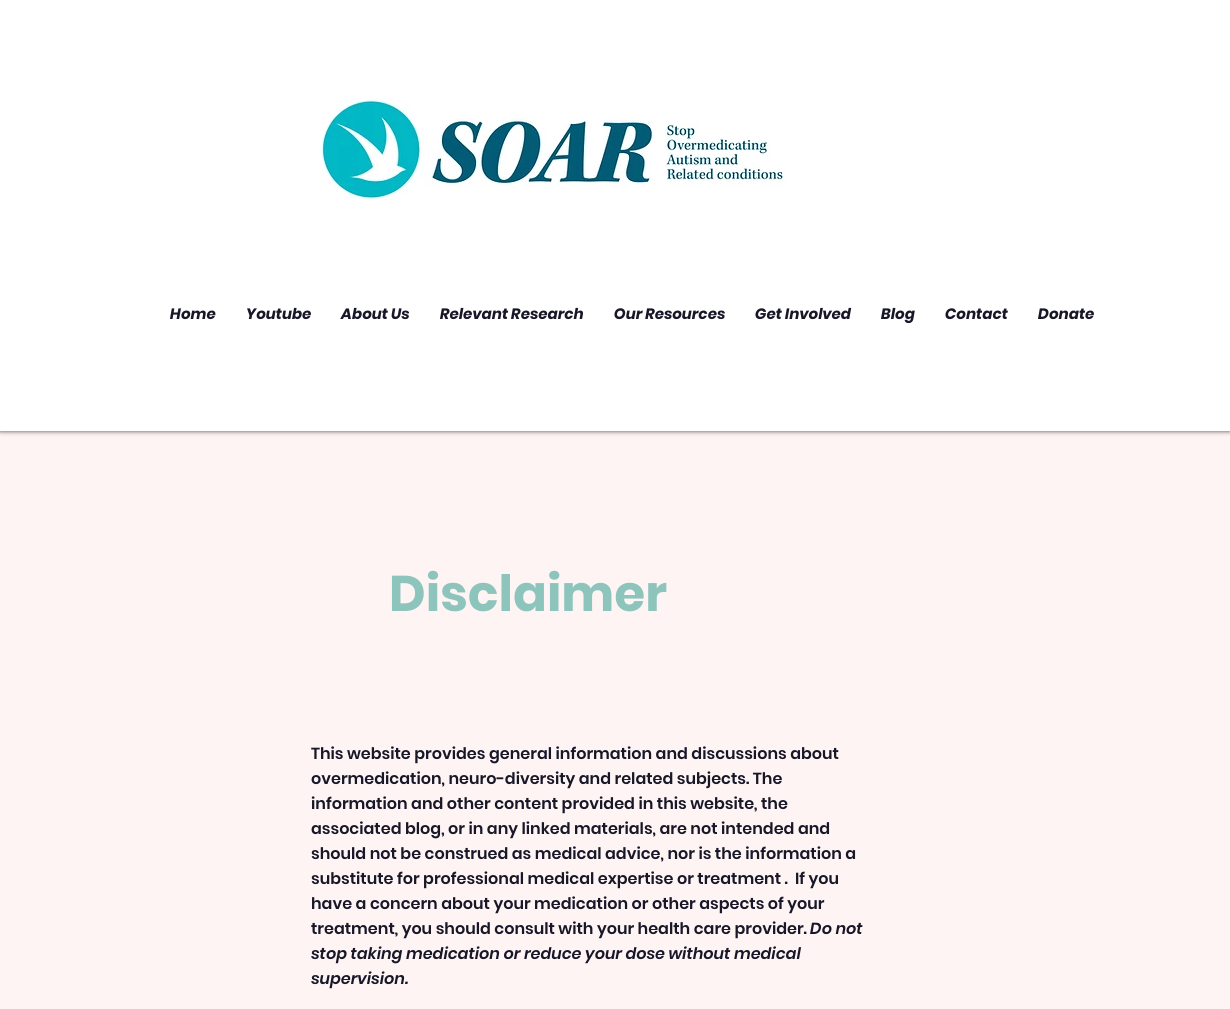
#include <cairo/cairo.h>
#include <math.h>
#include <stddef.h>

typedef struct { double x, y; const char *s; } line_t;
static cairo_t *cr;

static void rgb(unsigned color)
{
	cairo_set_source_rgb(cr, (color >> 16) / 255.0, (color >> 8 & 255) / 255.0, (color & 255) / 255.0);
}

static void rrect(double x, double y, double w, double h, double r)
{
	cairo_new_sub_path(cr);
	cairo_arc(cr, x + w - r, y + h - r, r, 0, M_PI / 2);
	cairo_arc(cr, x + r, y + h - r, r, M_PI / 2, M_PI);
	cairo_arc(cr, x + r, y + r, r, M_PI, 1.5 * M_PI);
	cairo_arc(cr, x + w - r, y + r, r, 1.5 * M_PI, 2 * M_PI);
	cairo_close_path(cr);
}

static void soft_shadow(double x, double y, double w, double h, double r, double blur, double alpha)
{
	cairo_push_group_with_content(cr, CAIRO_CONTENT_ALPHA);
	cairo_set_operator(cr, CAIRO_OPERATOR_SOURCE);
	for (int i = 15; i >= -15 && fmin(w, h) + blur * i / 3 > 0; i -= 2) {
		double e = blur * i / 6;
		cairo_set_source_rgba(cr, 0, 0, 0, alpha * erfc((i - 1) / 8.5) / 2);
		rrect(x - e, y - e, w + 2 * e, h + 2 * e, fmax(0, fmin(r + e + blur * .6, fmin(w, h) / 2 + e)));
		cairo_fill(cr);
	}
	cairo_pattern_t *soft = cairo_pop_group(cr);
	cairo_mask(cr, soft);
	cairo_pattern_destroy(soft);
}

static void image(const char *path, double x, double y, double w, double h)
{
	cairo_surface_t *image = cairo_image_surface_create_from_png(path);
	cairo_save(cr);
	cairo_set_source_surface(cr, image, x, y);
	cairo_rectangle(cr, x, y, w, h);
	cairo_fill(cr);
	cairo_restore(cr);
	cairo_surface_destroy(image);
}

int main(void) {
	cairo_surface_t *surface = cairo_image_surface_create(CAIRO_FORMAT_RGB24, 1230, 1009);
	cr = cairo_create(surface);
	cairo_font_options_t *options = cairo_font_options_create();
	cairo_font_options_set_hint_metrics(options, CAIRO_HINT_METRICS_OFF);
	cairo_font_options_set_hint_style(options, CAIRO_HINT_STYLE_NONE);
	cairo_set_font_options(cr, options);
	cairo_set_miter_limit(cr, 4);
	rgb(0xfef4f4);
	cairo_paint(cr);
	rgb(0x000000);
	soft_shadow(0, 0, 1230, 431, 0, 2.5, 0.7);
	rgb(0xffffff);
	cairo_rectangle(cr, 0, 0, 1230, 431);
	cairo_fill(cr);
	image("img/1.png", 320, 98, 467, 104);
	cairo_select_font_face(cr, "Poppins", CAIRO_FONT_SLANT_ITALIC, CAIRO_FONT_WEIGHT_BOLD);
	cairo_set_font_size(cr, 15);
	rgb(0x171728);
	{
		static const line_t items[] = {
			{170, 319, "Home"},
			{246, 319, "Youtube"},
			{341, 319, "About Us"},
			{440, 319, "Relevant Research"},
			{614, 319, "Our Resources"},
			{755, 319, "Get Involved"},
			{881, 319, "Blog"},
			{945, 319, "Contact"},
			{1038, 319, "Donate"},
		};
		for (size_t i = 0; i < sizeof items / sizeof *items; i++) {
			cairo_move_to(cr, items[i].x, items[i].y);
			cairo_show_text(cr, items[i].s);
		}
	}
	cairo_select_font_face(cr, "Poppins", CAIRO_FONT_SLANT_NORMAL, CAIRO_FONT_WEIGHT_BOLD);
	cairo_set_font_size(cr, 50);
	rgb(0x8dc5bd);
	cairo_move_to(cr, 389, 611);
	cairo_show_text(cr, "Disclaimer");
	cairo_select_font_face(cr, "Poppins SemiBold", CAIRO_FONT_SLANT_NORMAL, CAIRO_FONT_WEIGHT_NORMAL);
	cairo_set_font_size(cr, 16);
	rgb(0x171728);
	{
		static const line_t items[] = {
			{311, 759, "This website provides general information and discussions about"},
			{311, 784, "overmedication, neuro-diversity and related subjects. The"},
			{311, 809, "information and other content provided in this website, the"},
			{311, 834, "associated blog, or in any linked materials, are not intended and"},
			{311, 859, "should not be construed as medical advice, nor is the information a"},
			{311, 884, "substitute for professional medical expertise or treatment .  If you"},
			{311, 909, "have a concern about your medication or other aspects of your"},
			{311, 934, "treatment, you should consult with your health care provider."},
		};
		for (size_t i = 0; i < sizeof items / sizeof *items; i++) {
			cairo_move_to(cr, items[i].x, items[i].y);
			cairo_show_text(cr, items[i].s);
		}
	}
	cairo_select_font_face(cr, "Poppins SemiBold", CAIRO_FONT_SLANT_ITALIC, CAIRO_FONT_WEIGHT_NORMAL);
	{
		static const line_t items[] = {
			{810, 934, "Do not"},
			{311, 959, "stop taking medication or reduce your dose without medical"},
			{311, 984, "supervision."},
		};
		for (size_t i = 0; i < sizeof items / sizeof *items; i++) {
			cairo_move_to(cr, items[i].x, items[i].y);
			cairo_show_text(cr, items[i].s);
		}
	}
	cairo_surface_write_to_png(surface, "page.png");
	cairo_font_options_destroy(options);
	cairo_destroy(cr);
	cairo_surface_destroy(surface);
	return 0;
}
